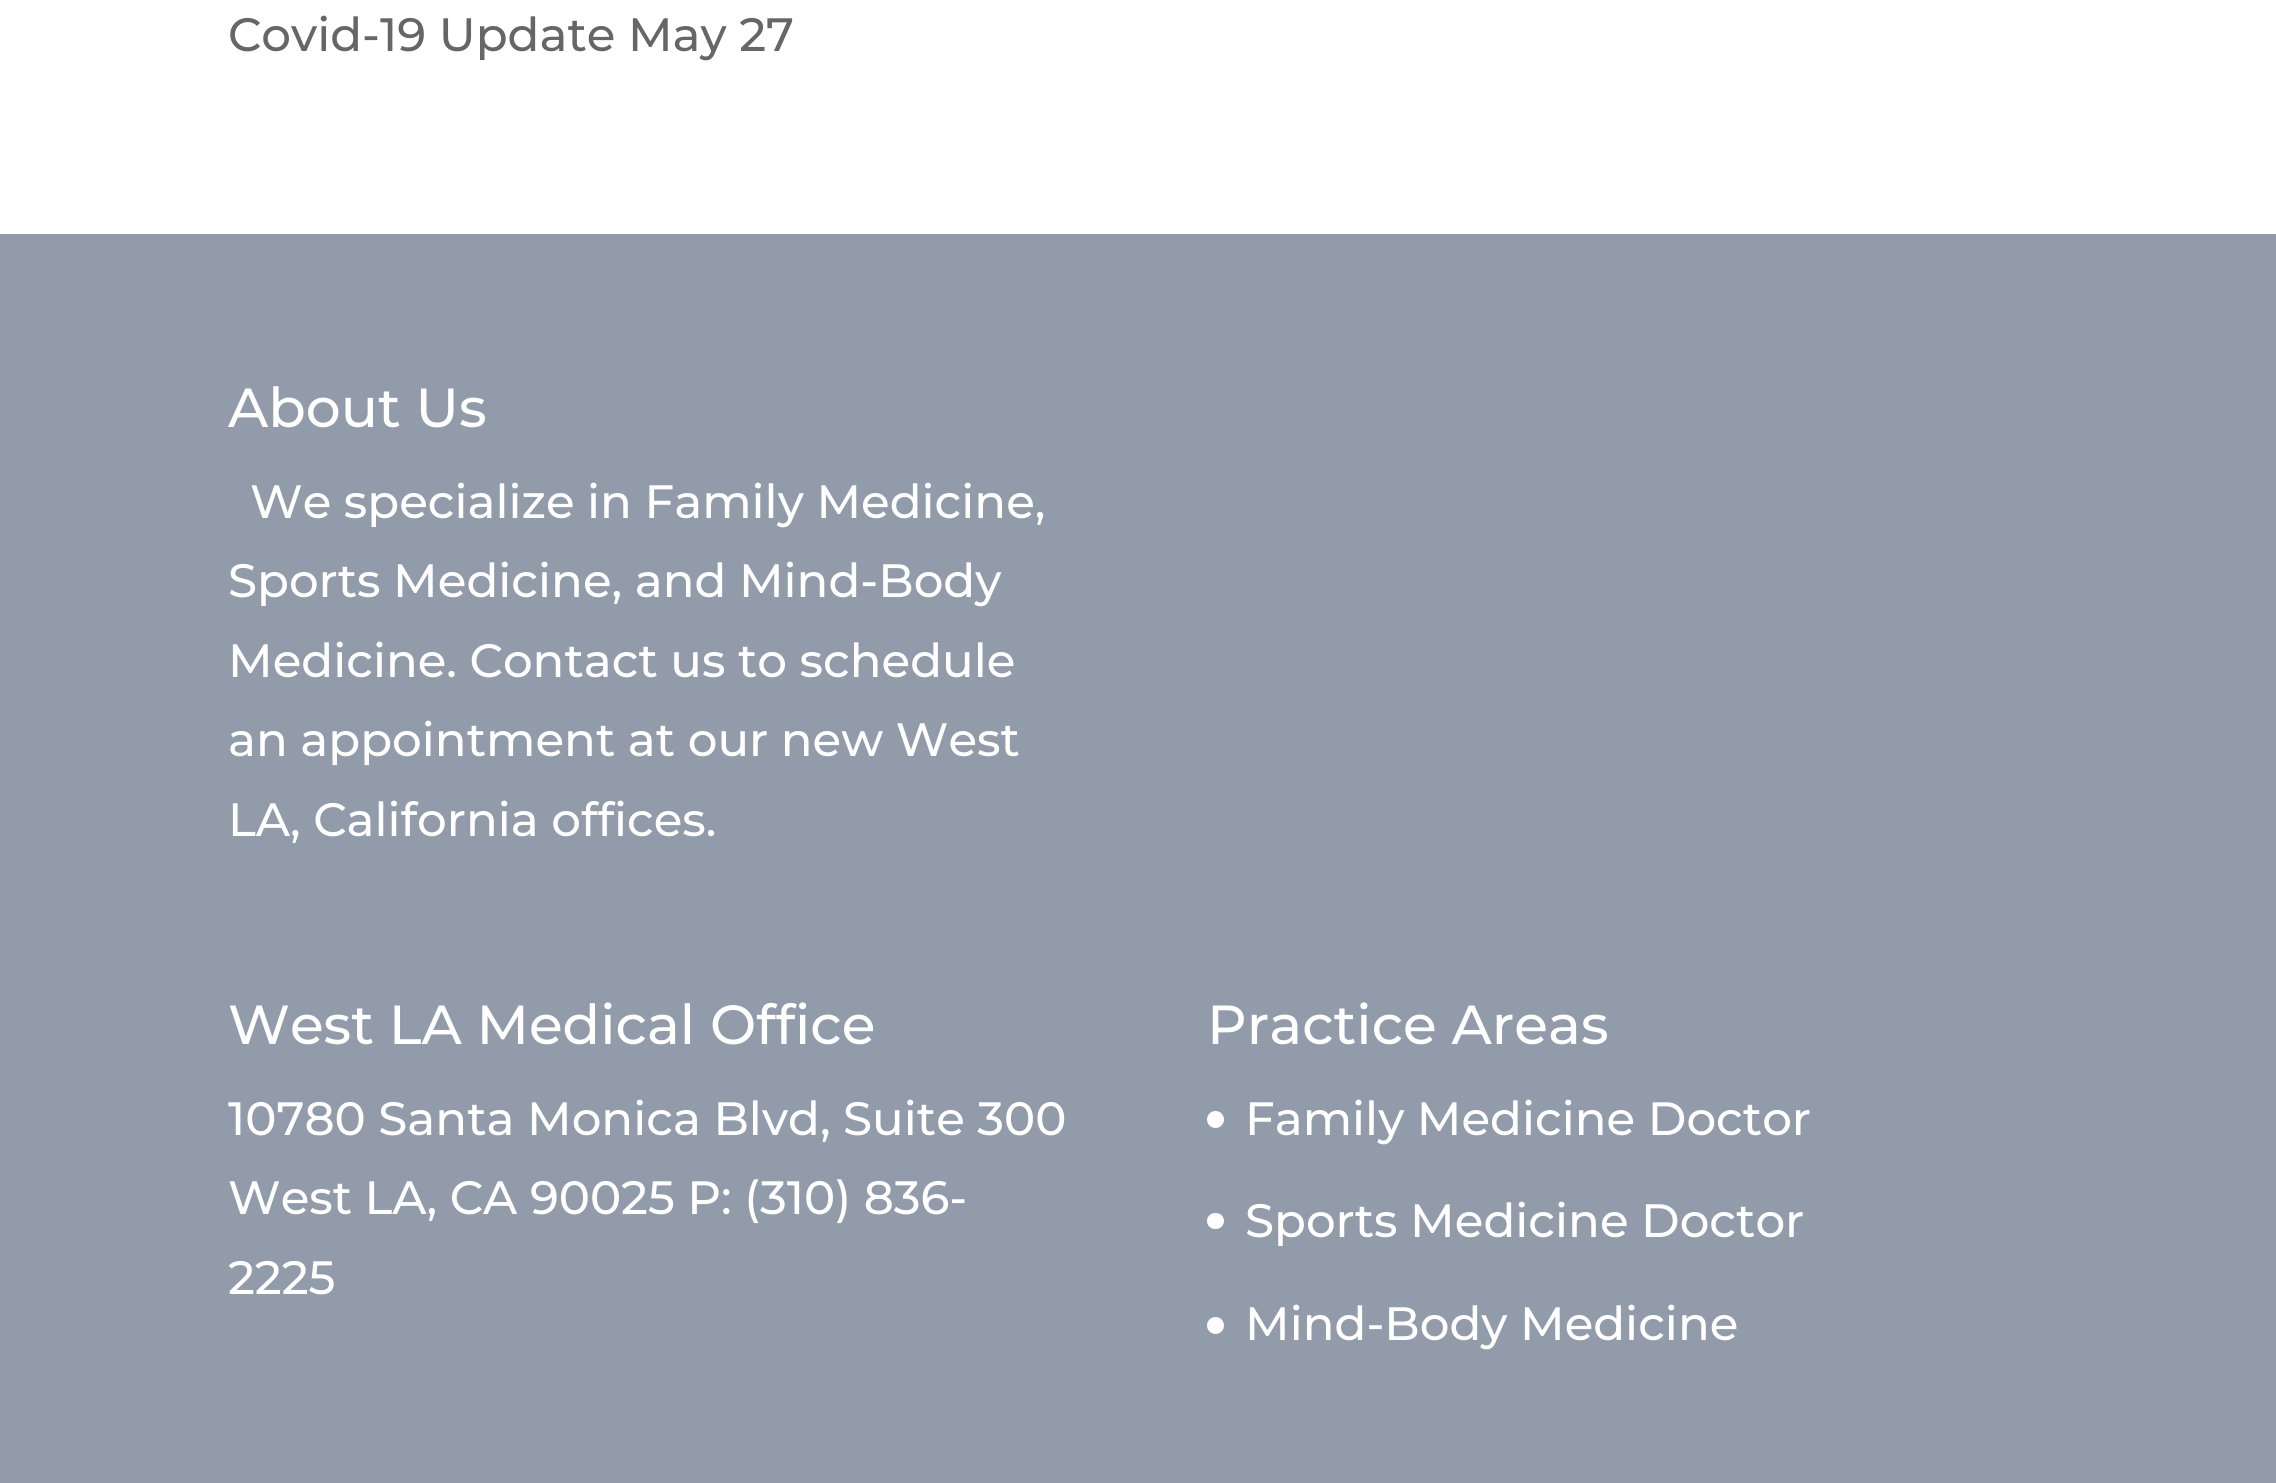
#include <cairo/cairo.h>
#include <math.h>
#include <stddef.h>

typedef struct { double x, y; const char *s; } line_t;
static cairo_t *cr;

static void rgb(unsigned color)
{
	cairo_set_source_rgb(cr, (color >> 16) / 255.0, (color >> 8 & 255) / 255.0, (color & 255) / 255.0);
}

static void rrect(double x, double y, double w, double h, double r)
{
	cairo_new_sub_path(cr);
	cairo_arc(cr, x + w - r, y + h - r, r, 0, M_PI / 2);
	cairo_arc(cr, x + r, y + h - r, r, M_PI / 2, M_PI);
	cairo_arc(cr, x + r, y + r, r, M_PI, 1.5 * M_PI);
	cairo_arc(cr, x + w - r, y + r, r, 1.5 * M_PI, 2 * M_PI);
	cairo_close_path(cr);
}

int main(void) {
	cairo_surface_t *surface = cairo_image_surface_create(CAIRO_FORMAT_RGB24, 2276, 1483);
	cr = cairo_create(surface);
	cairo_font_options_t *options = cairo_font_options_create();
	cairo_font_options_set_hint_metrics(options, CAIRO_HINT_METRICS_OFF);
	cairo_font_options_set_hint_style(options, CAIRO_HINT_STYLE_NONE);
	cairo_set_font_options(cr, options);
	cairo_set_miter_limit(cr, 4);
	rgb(0xffffff);
	cairo_paint(cr);
	rgb(0x919baa);
	cairo_rectangle(cr, 0, 234, 2276, 1249);
	cairo_fill(cr);
	rgb(0xffffff);
	cairo_arc(cr, 1215.5, 1119.5, 8.5, 0, 2 * M_PI);
	cairo_fill(cr);
	rrect(1207, 1213, 17, 16, 8);
	cairo_fill(cr);
	cairo_arc(cr, 1215.5, 1325.5, 8.5, 0, 2 * M_PI);
	cairo_fill(cr);
	cairo_select_font_face(cr, "Montserrat Medium", CAIRO_FONT_SLANT_NORMAL, CAIRO_FONT_WEIGHT_NORMAL);
	cairo_set_font_size(cr, 46.75);
	rgb(0x666666);
	cairo_move_to(cr, 228, 51);
	cairo_show_text(cr, "Covid-19 Update May 27");
	cairo_set_font_size(cr, 55);
	rgb(0xffffff);
	cairo_move_to(cr, 228, 427);
	cairo_show_text(cr, "About Us");
	cairo_set_font_size(cr, 46.75);
	{
		static const line_t items[] = {
			{250, 518, "We specialize in Family Medicine,"},
			{228, 597, "Sports Medicine, and Mind-Body"},
			{228, 677, "Medicine. Contact us to schedule"},
			{228, 756, "an appointment at our new West"},
			{228, 836, "LA, California offices."},
		};
		for (size_t i = 0; i < sizeof items / sizeof *items; i++) {
			cairo_move_to(cr, items[i].x, items[i].y);
			cairo_show_text(cr, items[i].s);
		}
	}
	cairo_set_font_size(cr, 55);
	cairo_move_to(cr, 228, 1044);
	cairo_show_text(cr, "West LA Medical Office");
	cairo_set_font_size(cr, 46.75);
	{
		static const line_t items[] = {
			{228, 1135, "10780 Santa Monica Blvd, Suite 300"},
			{228, 1214, "West LA, CA 90025 P: (310) 836-"},
			{228, 1294, "2225"},
		};
		for (size_t i = 0; i < sizeof items / sizeof *items; i++) {
			cairo_move_to(cr, items[i].x, items[i].y);
			cairo_show_text(cr, items[i].s);
		}
	}
	cairo_set_font_size(cr, 55);
	cairo_move_to(cr, 1207, 1044);
	cairo_show_text(cr, "Practice Areas");
	cairo_set_font_size(cr, 46.75);
	{
		static const line_t items[] = {
			{1245, 1135, "Family Medicine Doctor"},
			{1245, 1237, "Sports Medicine Doctor"},
			{1245, 1340, "Mind-Body Medicine"},
		};
		for (size_t i = 0; i < sizeof items / sizeof *items; i++) {
			cairo_move_to(cr, items[i].x, items[i].y);
			cairo_show_text(cr, items[i].s);
		}
	}
	cairo_surface_write_to_png(surface, "page.png");
	cairo_font_options_destroy(options);
	cairo_destroy(cr);
	cairo_surface_destroy(surface);
	return 0;
}
